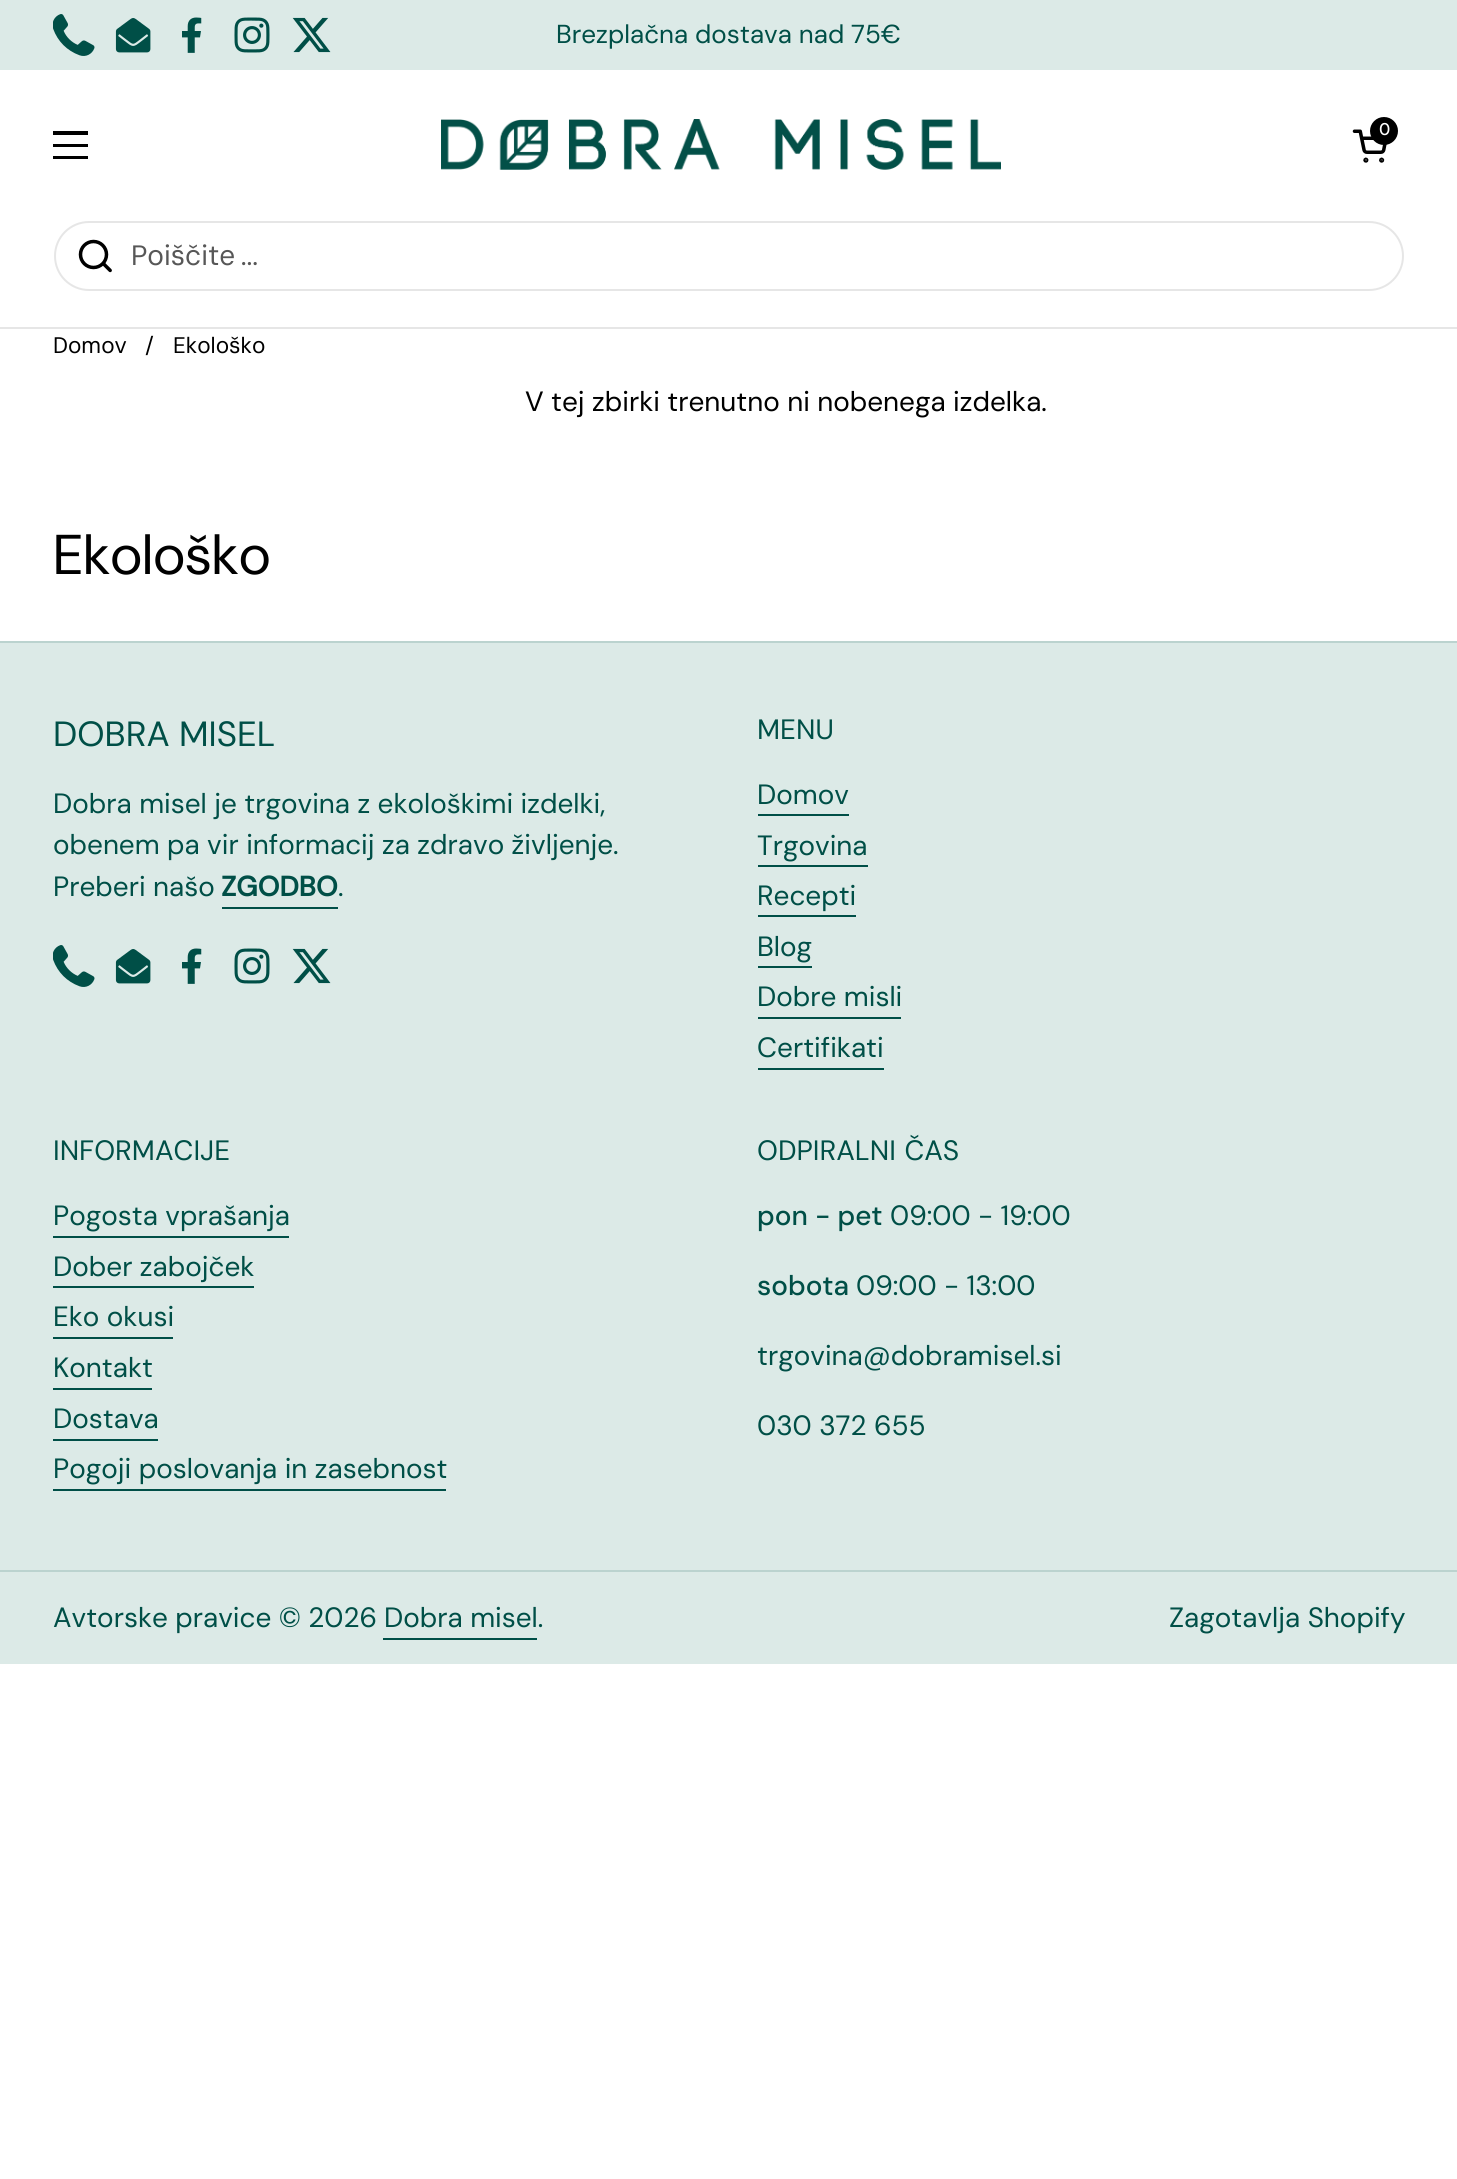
#include <cairo/cairo.h>
#include <math.h>
#include <stddef.h>

typedef struct { double x, y; const char *s; } line_t;
typedef struct { double x, y, w, h; unsigned color; } box_t;
static cairo_t *cr;

static void rgb(unsigned color)
{
	cairo_set_source_rgb(cr, (color >> 16) / 255.0, (color >> 8 & 255) / 255.0, (color & 255) / 255.0);
}

static void tracked(double x, double y, const char *s, double letter, double word)
{
	cairo_move_to(cr, x, y);
	while (*s) {
		char ch[5] = {0};
		int n = 0;
		do ch[n++] = *s++; while ((*s & 0xC0) == 0x80);
		cairo_show_text(cr, ch);
		cairo_rel_move_to(cr, letter + word * (*ch == ' '), 0);
	}
}

static void rrect(double x, double y, double w, double h, double r)
{
	cairo_new_sub_path(cr);
	cairo_arc(cr, x + w - r, y + h - r, r, 0, M_PI / 2);
	cairo_arc(cr, x + r, y + h - r, r, M_PI / 2, M_PI);
	cairo_arc(cr, x + r, y + r, r, M_PI, 1.5 * M_PI);
	cairo_arc(cr, x + w - r, y + r, r, 1.5 * M_PI, 2 * M_PI);
	cairo_close_path(cr);
}

static void image(const char *path, double x, double y, double w, double h)
{
	cairo_surface_t *image = cairo_image_surface_create_from_png(path);
	cairo_save(cr);
	cairo_set_source_surface(cr, image, x, y);
	cairo_rectangle(cr, x, y, w, h);
	cairo_fill(cr);
	cairo_restore(cr);
	cairo_surface_destroy(image);
}

int main(void) {
	cairo_surface_t *surface = cairo_image_surface_create(CAIRO_FORMAT_RGB24, 1457, 2179);
	cr = cairo_create(surface);
	cairo_font_options_t *options = cairo_font_options_create();
	cairo_font_options_set_hint_metrics(options, CAIRO_HINT_METRICS_OFF);
	cairo_font_options_set_hint_style(options, CAIRO_HINT_STYLE_NONE);
	cairo_set_font_options(cr, options);
	cairo_set_miter_limit(cr, 4);
	rgb(0xffffff);
	cairo_paint(cr);
	rgb(0xdceae7);
	cairo_rectangle(cr, 0, 0, 1457, 70);
	cairo_fill(cr);
	image("img/1.png", 53, 14, 42, 42);
	image("img/2.png", 115, 18, 36, 35);
	image("img/3.png", 182, 17, 20, 36);
	image("img/4.png", 234, 17, 36, 36);
	image("img/5.png", 292, 17, 39, 36);
	image("img/6.png", 441, 119, 560, 51);
	image("img/7.png", 1352, 129, 35, 34);
	rgb(0x000000);
	cairo_arc(cr, 1384, 131, 14, 0, 2 * M_PI);
	cairo_fill(cr);
	{
		static const box_t items[] = {
			{53, 131, 35, 4, 0x000000},
			{53, 144, 35, 3, 0x000000},
			{53, 156, 35, 3, 0x000000},
			{0, 327, 1457, 2, 0xe6e6e6},
		};
		for (size_t i = 0; i < sizeof items / sizeof *items; i++) {
			rgb(items[i].color);
			cairo_rectangle(cr, items[i].x, items[i].y, items[i].w, items[i].h);
			cairo_fill(cr);
		}
	}
	rrect(55, 222, 1348, 68, 34);
	cairo_stroke(cr);
	image("img/8.png", 78, 239, 34, 34);
	{
		static const box_t items[] = {
			{0, 643, 1457, 1021, 0xdceae7},
			{0, 641, 1457, 2, 0xbbd3cf},
			{222, 907, 116, 2, 0x004f47},
		};
		for (size_t i = 0; i < sizeof items / sizeof *items; i++) {
			rgb(items[i].color);
			cairo_rectangle(cr, items[i].x, items[i].y, items[i].w, items[i].h);
			cairo_fill(cr);
		}
	}
	image("img/1.png", 53, 945, 42, 42);
	image("img/2.png", 115, 949, 36, 35);
	image("img/3.png", 182, 948, 20, 36);
	image("img/4.png", 234, 948, 36, 36);
	image("img/5.png", 292, 948, 39, 36);
	{
		static const box_t items[] = {
			{758, 814, 91, 2, 0x004f47},
			{758, 865, 110, 2, 0x004f47},
			{758, 915, 98, 2, 0x004f47},
			{758, 966, 54, 2, 0x004f47},
			{758, 1017, 143, 2, 0x004f47},
			{758, 1068, 126, 2, 0x004f47},
			{53, 1236, 236, 2, 0x004f47},
			{53, 1286, 201, 2, 0x004f47},
			{53, 1337, 120, 2, 0x004f47},
			{53, 1388, 99, 2, 0x004f47},
			{53, 1439, 105, 2, 0x004f47},
			{53, 1489, 393, 2, 0x004f47},
			{0, 1570, 1457, 2, 0xbbd3cf},
			{383, 1638, 154, 2, 0x004f47},
		};
		for (size_t i = 0; i < sizeof items / sizeof *items; i++) {
			rgb(items[i].color);
			cairo_rectangle(cr, items[i].x, items[i].y, items[i].w, items[i].h);
			cairo_fill(cr);
		}
	}
	cairo_select_font_face(cr, "DM Sans", CAIRO_FONT_SLANT_NORMAL, CAIRO_FONT_WEIGHT_NORMAL);
	cairo_set_font_size(cr, 26);
	cairo_move_to(cr, 556, 43);
	cairo_show_text(cr, "Brezplačna dostava nad 75€");
	cairo_select_font_face(cr, "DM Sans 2 Medium", CAIRO_FONT_SLANT_NORMAL, CAIRO_FONT_WEIGHT_NORMAL);
	cairo_set_font_size(cr, 17);
	rgb(0xffffff);
	cairo_move_to(cr, 1379, 135);
	cairo_show_text(cr, "0");
	cairo_select_font_face(cr, "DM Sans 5", CAIRO_FONT_SLANT_NORMAL, CAIRO_FONT_WEIGHT_NORMAL);
	cairo_set_font_size(cr, 28);
	rgb(0x575757);
	tracked(131, 265, "Poiščite ...", 0, -2);
	cairo_set_font_size(cr, 22.5);
	rgb(0x000000);
	{
		static const line_t items[] = {
			{53, 353, "Domov"},
			{145, 353, "/"},
			{173, 353, "Ekološko"},
		};
		for (size_t i = 0; i < sizeof items / sizeof *items; i++) {
			cairo_move_to(cr, items[i].x, items[i].y);
			cairo_show_text(cr, items[i].s);
		}
	}
	cairo_select_font_face(cr, "DM Sans 2", CAIRO_FONT_SLANT_NORMAL, CAIRO_FONT_WEIGHT_NORMAL);
	cairo_set_font_size(cr, 27.9);
	cairo_move_to(cr, 525, 411);
	cairo_show_text(cr, "V tej zbirki trenutno ni nobenega izdelka.");
	cairo_select_font_face(cr, "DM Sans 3", CAIRO_FONT_SLANT_NORMAL, CAIRO_FONT_WEIGHT_NORMAL);
	cairo_set_font_size(cr, 56);
	cairo_move_to(cr, 53, 574);
	cairo_show_text(cr, "Ekološko");
	cairo_select_font_face(cr, "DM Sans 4", CAIRO_FONT_SLANT_NORMAL, CAIRO_FONT_WEIGHT_NORMAL);
	cairo_set_font_size(cr, 35);
	rgb(0x004f47);
	cairo_move_to(cr, 53, 746);
	cairo_show_text(cr, "DOBRA MISEL");
	cairo_select_font_face(cr, "DM Sans 2", CAIRO_FONT_SLANT_NORMAL, CAIRO_FONT_WEIGHT_NORMAL);
	cairo_set_font_size(cr, 27.9);
	{
		static const line_t items[] = {
			{53, 813, "Dobra misel je trgovina z ekološkimi izdelki,"},
			{53, 854, "obenem pa vir informacij za zdravo življenje."},
			{53, 896, "Preberi našo"},
		};
		for (size_t i = 0; i < sizeof items / sizeof *items; i++) {
			cairo_move_to(cr, items[i].x, items[i].y);
			cairo_show_text(cr, items[i].s);
		}
	}
	cairo_select_font_face(cr, "DM Sans", CAIRO_FONT_SLANT_NORMAL, CAIRO_FONT_WEIGHT_BOLD);
	cairo_move_to(cr, 221, 896);
	cairo_show_text(cr, "ZGODBO");
	cairo_select_font_face(cr, "DM Sans 2", CAIRO_FONT_SLANT_NORMAL, CAIRO_FONT_WEIGHT_NORMAL);
	cairo_move_to(cr, 338, 896);
	cairo_show_text(cr, ".");
	cairo_select_font_face(cr, "DM Sans 5", CAIRO_FONT_SLANT_NORMAL, CAIRO_FONT_WEIGHT_NORMAL);
	cairo_set_font_size(cr, 28);
	cairo_move_to(cr, 757, 739);
	cairo_show_text(cr, "MENU");
	cairo_select_font_face(cr, "DM Sans 2", CAIRO_FONT_SLANT_NORMAL, CAIRO_FONT_WEIGHT_NORMAL);
	cairo_set_font_size(cr, 27.9);
	{
		static const line_t items[] = {
			{757, 804, "Domov"},
			{757, 855, "Trgovina"},
			{757, 905, "Recepti"},
			{757, 956, "Blog"},
			{757, 1006, "Dobre misli"},
			{757, 1057, "Certifikati"},
		};
		for (size_t i = 0; i < sizeof items / sizeof *items; i++) {
			cairo_move_to(cr, items[i].x, items[i].y);
			cairo_show_text(cr, items[i].s);
		}
	}
	cairo_select_font_face(cr, "DM Sans 5", CAIRO_FONT_SLANT_NORMAL, CAIRO_FONT_WEIGHT_NORMAL);
	cairo_set_font_size(cr, 28);
	cairo_move_to(cr, 53, 1160);
	cairo_show_text(cr, "INFORMACIJE");
	cairo_select_font_face(cr, "DM Sans 2", CAIRO_FONT_SLANT_NORMAL, CAIRO_FONT_WEIGHT_NORMAL);
	cairo_set_font_size(cr, 27.9);
	{
		static const line_t items[] = {
			{53, 1225, "Pogosta vprašanja"},
			{53, 1276, "Dober zabojček"},
			{53, 1326, "Eko okusi"},
			{53, 1377, "Kontakt"},
			{53, 1428, "Dostava"},
			{53, 1478, "Pogoji poslovanja in zasebnost"},
		};
		for (size_t i = 0; i < sizeof items / sizeof *items; i++) {
			cairo_move_to(cr, items[i].x, items[i].y);
			cairo_show_text(cr, items[i].s);
		}
	}
	cairo_select_font_face(cr, "DM Sans 5", CAIRO_FONT_SLANT_NORMAL, CAIRO_FONT_WEIGHT_NORMAL);
	cairo_set_font_size(cr, 28);
	tracked(757, 1160, "ODPIRALNI ČAS", 0, 1);
	cairo_select_font_face(cr, "DM Sans Medium", CAIRO_FONT_SLANT_NORMAL, CAIRO_FONT_WEIGHT_NORMAL);
	cairo_set_font_size(cr, 27.9);
	cairo_move_to(cr, 757, 1225);
	cairo_show_text(cr, "pon - pet");
	cairo_select_font_face(cr, "DM Sans 2", CAIRO_FONT_SLANT_NORMAL, CAIRO_FONT_WEIGHT_NORMAL);
	cairo_move_to(cr, 890, 1225);
	cairo_show_text(cr, "09:00 - 19:00");
	cairo_select_font_face(cr, "DM Sans Medium", CAIRO_FONT_SLANT_NORMAL, CAIRO_FONT_WEIGHT_NORMAL);
	cairo_move_to(cr, 757, 1295);
	cairo_show_text(cr, "sobota");
	cairo_select_font_face(cr, "DM Sans 2", CAIRO_FONT_SLANT_NORMAL, CAIRO_FONT_WEIGHT_NORMAL);
	{
		static const line_t items[] = {
			{856, 1295, "09:00 - 13:00"},
			{757, 1365, "trgovina@dobramisel.si"},
			{757, 1435, "030 372 655"},
			{53, 1627, "Avtorske pravice © 2026"},
			{384, 1627, "Dobra misel."},
			{1169, 1627, "Zagotavlja Shopify"},
		};
		for (size_t i = 0; i < sizeof items / sizeof *items; i++) {
			cairo_move_to(cr, items[i].x, items[i].y);
			cairo_show_text(cr, items[i].s);
		}
	}
	cairo_surface_write_to_png(surface, "page.png");
	cairo_font_options_destroy(options);
	cairo_destroy(cr);
	cairo_surface_destroy(surface);
	return 0;
}
